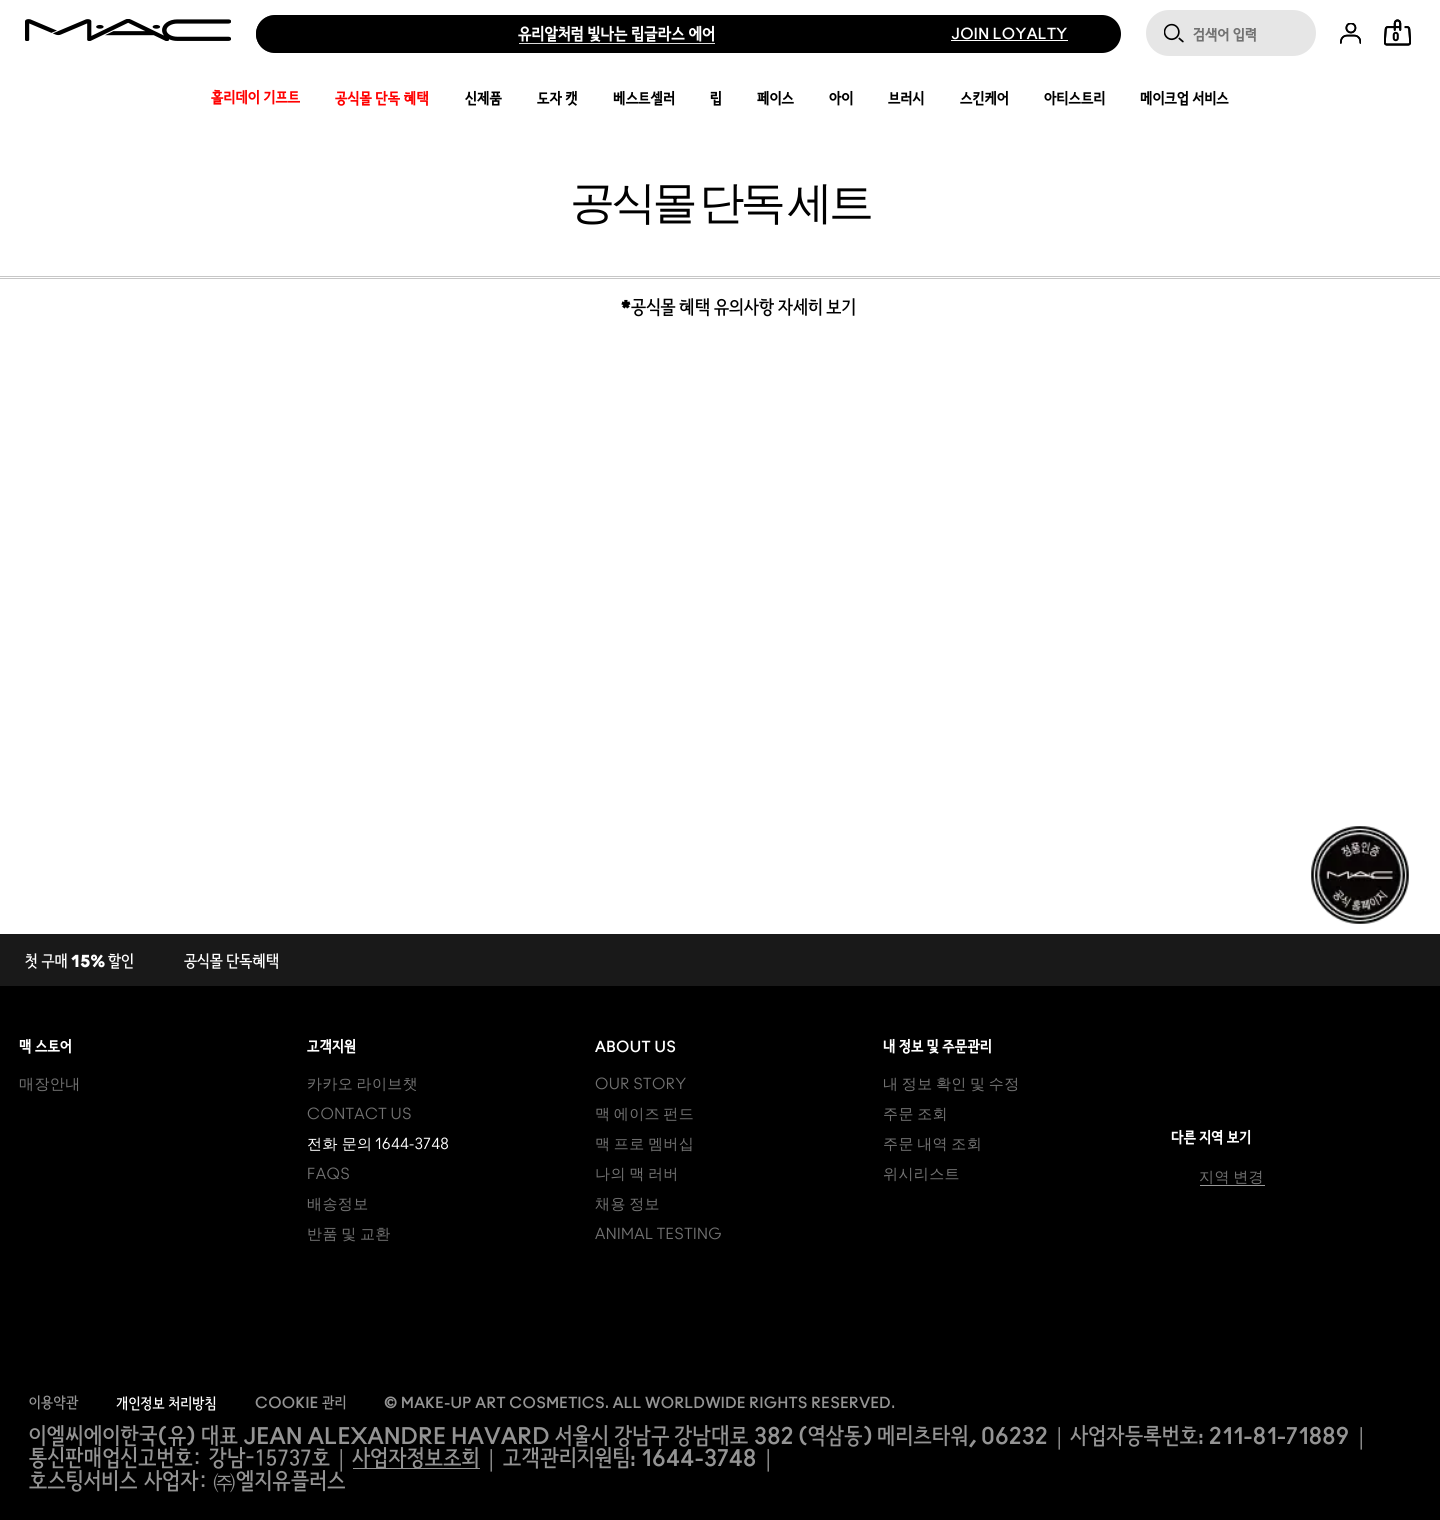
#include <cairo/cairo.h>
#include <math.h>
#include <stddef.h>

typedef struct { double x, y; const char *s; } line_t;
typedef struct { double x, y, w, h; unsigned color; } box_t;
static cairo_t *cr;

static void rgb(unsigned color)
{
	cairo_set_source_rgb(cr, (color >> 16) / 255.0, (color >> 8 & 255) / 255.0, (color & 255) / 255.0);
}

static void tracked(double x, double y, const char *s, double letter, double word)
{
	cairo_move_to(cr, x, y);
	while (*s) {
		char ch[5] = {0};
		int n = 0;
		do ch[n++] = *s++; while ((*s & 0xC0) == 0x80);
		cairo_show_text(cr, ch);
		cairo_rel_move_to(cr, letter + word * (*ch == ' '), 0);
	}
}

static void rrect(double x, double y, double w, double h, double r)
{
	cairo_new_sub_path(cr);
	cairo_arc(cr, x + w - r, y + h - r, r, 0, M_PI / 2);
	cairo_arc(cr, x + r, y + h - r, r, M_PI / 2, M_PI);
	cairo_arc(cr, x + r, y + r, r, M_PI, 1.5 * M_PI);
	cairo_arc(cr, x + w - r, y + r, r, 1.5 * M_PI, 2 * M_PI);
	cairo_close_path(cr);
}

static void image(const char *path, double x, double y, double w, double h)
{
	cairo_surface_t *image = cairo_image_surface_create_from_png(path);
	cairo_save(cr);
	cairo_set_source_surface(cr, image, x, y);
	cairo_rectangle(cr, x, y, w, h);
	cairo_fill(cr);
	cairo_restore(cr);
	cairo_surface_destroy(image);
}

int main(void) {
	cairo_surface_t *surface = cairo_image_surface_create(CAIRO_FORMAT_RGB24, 1440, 1520);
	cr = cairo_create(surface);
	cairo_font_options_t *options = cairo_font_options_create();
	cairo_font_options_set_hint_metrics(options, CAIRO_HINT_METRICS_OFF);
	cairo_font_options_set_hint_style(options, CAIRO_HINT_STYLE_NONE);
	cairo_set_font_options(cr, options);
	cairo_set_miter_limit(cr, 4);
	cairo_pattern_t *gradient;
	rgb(0xffffff);
	cairo_paint(cr);
	image("img/1.png", 25, 19, 206, 22);
	rgb(0x000000);
	rrect(256, 15, 865, 38, 19);
	cairo_fill(cr);
	gradient = cairo_pattern_create_linear(256, 34, 281, 34);
	cairo_pattern_add_color_stop_rgba(gradient, 0, 0, 0, 0, 0.9);
	cairo_pattern_add_color_stop_rgba(gradient, 1, 0, 0, 0, 0.1);
	cairo_set_source(cr, gradient);
	cairo_pattern_destroy(gradient);
	cairo_new_path(cr);
	cairo_move_to(cr, 275, 15);
	cairo_line_to(cr, 281, 15);
	cairo_line_to(cr, 281, 53);
	cairo_line_to(cr, 275, 53);
	cairo_curve_to(cr, 264.5, 53, 256, 44.5, 256, 34);
	cairo_curve_to(cr, 256, 23.5, 264.5, 15, 275, 15);
	cairo_close_path(cr);
	cairo_fill(cr);
	rgb(0xdbdbdb);
	cairo_rectangle(cr, 519, 43, 196, 1);
	cairo_fill(cr);
	rgb(0xffffff);
	cairo_rectangle(cr, 951, 40, 117, 1);
	cairo_fill(cr);
	rgb(0xe6e6e6);
	rrect(1146, 10, 170, 46, 23);
	cairo_fill(cr);
	image("img/2.png", 1164, 23, 20, 20);
	image("img/3.png", 1340, 23, 21, 21);
	image("img/4.png", 1340, 23, 21, 21);
	image("img/5.png", 1384, 19, 27, 27);
	image("img/6.png", 1384, 19, 27, 27);
	rgb(0xc7c7c7);
	cairo_rectangle(cr, 0, 276, 1440, 1);
	cairo_fill(cr);
	cairo_rectangle(cr, 0, 278, 1440, 1);
	cairo_fill(cr);
	image("img/7.png", 1311, 826, 98, 98);
	{
		static const box_t items[] = {
			{0, 934, 1440, 52, 0x191919},
			{0, 986, 1440, 534, 0x000000},
			{1200, 1185, 65, 1, 0x999999},
			{353, 1468, 127, 1, 0x949494},
		};
		for (size_t i = 0; i < sizeof items / sizeof *items; i++) {
			rgb(items[i].color);
			cairo_rectangle(cr, items[i].x, items[i].y, items[i].w, items[i].h);
			cairo_fill(cr);
		}
	}
	cairo_select_font_face(cr, "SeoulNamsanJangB", CAIRO_FONT_SLANT_NORMAL, CAIRO_FONT_WEIGHT_BOLD);
	cairo_set_font_size(cr, 16.25);
	rgb(0xffffff);
	tracked(518, 40, "유리알처럼 빛나는 립글라스 에어", 0.38, -1.5);
	cairo_select_font_face(cr, "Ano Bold", CAIRO_FONT_SLANT_NORMAL, CAIRO_FONT_WEIGHT_BOLD);
	cairo_set_font_size(cr, 15);
	tracked(951, 39, "JOIN LOYALTY", 0.38, 0);
	cairo_save(cr);
	cairo_rectangle(cr, 1193, 28, 105, 28);
	cairo_clip(cr);
	cairo_select_font_face(cr, "SeoulNamsanJangB", CAIRO_FONT_SLANT_NORMAL, CAIRO_FONT_WEIGHT_BOLD);
	rgb(0x727272);
	tracked(1193, 40, "검색어 입력", 0.38, -1.5);
	cairo_restore(cr);
	cairo_select_font_face(cr, "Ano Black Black", CAIRO_FONT_SLANT_NORMAL, CAIRO_FONT_WEIGHT_NORMAL);
	cairo_set_font_size(cr, 12);
	rgb(0x000000);
	cairo_move_to(cr, 1392, 41);
	cairo_show_text(cr, "0");
	cairo_select_font_face(cr, "SeoulNamsanJangB", CAIRO_FONT_SLANT_NORMAL, CAIRO_FONT_WEIGHT_BOLD);
	cairo_set_font_size(cr, 15);
	rgb(0xff0000);
	tracked(211, 103, "홀리데이 기프트", 0.38, -1.5);
	tracked(335, 104, "공식몰 단독 혜택", 0.38, -1.5);
	rgb(0x000000);
	tracked(465, 104, "신제품", 0.38, 0);
	tracked(537, 104, "도자 캣", 0.38, -1.5);
	{
		static const line_t items[] = {
			{613, 104, "베스트셀러"},
			{710, 104, "립"},
			{757, 104, "페이스"},
			{829, 104, "아이"},
			{888, 104, "브러시"},
			{960, 104, "스킨케어"},
			{1044, 104, "아티스트리"},
		};
		for (size_t i = 0; i < sizeof items / sizeof *items; i++) {
			tracked(items[i].x, items[i].y, items[i].s, 0.38, 0);
		}
	}
	tracked(1140, 104, "메이크업 서비스", 0.38, -1.5);
	cairo_select_font_face(cr, "WenQuanYi Zen Hei Medium", CAIRO_FONT_SLANT_NORMAL, CAIRO_FONT_WEIGHT_NORMAL);
	cairo_set_font_size(cr, 45);
	tracked(570, 218, "공식몰 단독 세트", -3.75, -4);
	cairo_select_font_face(cr, "Ano Black Black", CAIRO_FONT_SLANT_NORMAL, CAIRO_FONT_WEIGHT_NORMAL);
	cairo_set_font_size(cr, 18.75);
	cairo_move_to(cr, 621, 314);
	cairo_show_text(cr, "*");
	cairo_select_font_face(cr, "SeoulNamsanJangB", CAIRO_FONT_SLANT_NORMAL, CAIRO_FONT_WEIGHT_NORMAL);
	tracked(631, 314, "공식몰 혜택 유의사항 자세히 보기", 0, -2);
	cairo_set_font_size(cr, 16.25);
	rgb(0xffffff);
	tracked(25, 967, "첫 구매", 0, -1);
	cairo_select_font_face(cr, "Ano Black Black", CAIRO_FONT_SLANT_NORMAL, CAIRO_FONT_WEIGHT_NORMAL);
	cairo_move_to(cr, 71, 967);
	cairo_show_text(cr, "15%");
	cairo_select_font_face(cr, "SeoulNamsanJangB", CAIRO_FONT_SLANT_NORMAL, CAIRO_FONT_WEIGHT_NORMAL);
	cairo_move_to(cr, 108, 967);
	cairo_show_text(cr, "할인");
	tracked(184, 967, "공식몰 단독혜택", 0, -1.5);
	cairo_select_font_face(cr, "SeoulNamsanJangB", CAIRO_FONT_SLANT_NORMAL, CAIRO_FONT_WEIGHT_BOLD);
	cairo_set_font_size(cr, 15);
	tracked(19, 1052, "맥 스토어", 0.38, -1.5);
	cairo_select_font_face(cr, "WenQuanYi Zen Hei Medium", CAIRO_FONT_SLANT_NORMAL, CAIRO_FONT_WEIGHT_NORMAL);
	rgb(0x727272);
	tracked(19, 1089, "매장안내", 0.38, 0);
	cairo_select_font_face(cr, "SeoulNamsanJangB", CAIRO_FONT_SLANT_NORMAL, CAIRO_FONT_WEIGHT_BOLD);
	rgb(0xffffff);
	tracked(307, 1052, "고객지원", 0.38, 0);
	cairo_select_font_face(cr, "WenQuanYi Zen Hei Medium", CAIRO_FONT_SLANT_NORMAL, CAIRO_FONT_WEIGHT_NORMAL);
	rgb(0x727272);
	tracked(307, 1089, "카카오 라이브챗", 0.38, -1.5);
	cairo_select_font_face(cr, "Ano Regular", CAIRO_FONT_SLANT_NORMAL, CAIRO_FONT_WEIGHT_NORMAL);
	tracked(307, 1119, "CONTACT US", 0.38, 0);
	cairo_select_font_face(cr, "WenQuanYi Zen Hei Medium", CAIRO_FONT_SLANT_NORMAL, CAIRO_FONT_WEIGHT_NORMAL);
	rgb(0xffffff);
	tracked(307, 1149, "전화 문의", 0.38, -1);
	cairo_select_font_face(cr, "Ano Regular", CAIRO_FONT_SLANT_NORMAL, CAIRO_FONT_WEIGHT_NORMAL);
	tracked(375, 1149, "1644-3748", 0.38, 0);
	rgb(0x727272);
	tracked(307, 1179, "FAQS", 0.38, 0);
	cairo_select_font_face(cr, "WenQuanYi Zen Hei Medium", CAIRO_FONT_SLANT_NORMAL, CAIRO_FONT_WEIGHT_NORMAL);
	tracked(307, 1209, "배송정보", 0.38, 0);
	tracked(307, 1239, "반품 및 교환", 0.38, -1.5);
	cairo_select_font_face(cr, "Ano Bold", CAIRO_FONT_SLANT_NORMAL, CAIRO_FONT_WEIGHT_BOLD);
	rgb(0xffffff);
	tracked(595, 1052, "ABOUT US", 0.38, 0);
	cairo_select_font_face(cr, "Ano Regular", CAIRO_FONT_SLANT_NORMAL, CAIRO_FONT_WEIGHT_NORMAL);
	rgb(0x727272);
	tracked(595, 1089, "OUR STORY", 0.38, 0);
	cairo_select_font_face(cr, "WenQuanYi Zen Hei Medium", CAIRO_FONT_SLANT_NORMAL, CAIRO_FONT_WEIGHT_NORMAL);
	{
		static const line_t items[] = {
			{595, 1119, "맥 에이즈 펀드"},
			{595, 1149, "맥 프로 멤버십"},
			{595, 1179, "나의 맥 러버"},
			{595, 1209, "채용 정보"},
		};
		for (size_t i = 0; i < sizeof items / sizeof *items; i++) {
			tracked(items[i].x, items[i].y, items[i].s, 0.38, -1.5);
		}
	}
	cairo_select_font_face(cr, "Ano Regular", CAIRO_FONT_SLANT_NORMAL, CAIRO_FONT_WEIGHT_NORMAL);
	tracked(595, 1239, "ANIMAL TESTING", 0.38, 0);
	cairo_select_font_face(cr, "SeoulNamsanJangB", CAIRO_FONT_SLANT_NORMAL, CAIRO_FONT_WEIGHT_BOLD);
	rgb(0xffffff);
	tracked(883, 1052, "내 정보 및 주문관리", 0.38, -1.5);
	cairo_select_font_face(cr, "WenQuanYi Zen Hei Medium", CAIRO_FONT_SLANT_NORMAL, CAIRO_FONT_WEIGHT_NORMAL);
	rgb(0x727272);
	{
		static const line_t items[] = {
			{883, 1089, "내 정보 확인 및 수정"},
			{883, 1119, "주문 조회"},
			{883, 1149, "주문 내역 조회"},
		};
		for (size_t i = 0; i < sizeof items / sizeof *items; i++) {
			tracked(items[i].x, items[i].y, items[i].s, 0.38, -1.5);
		}
	}
	tracked(883, 1179, "위시리스트", 0.38, 0);
	cairo_select_font_face(cr, "SeoulNamsanJangB", CAIRO_FONT_SLANT_NORMAL, CAIRO_FONT_WEIGHT_BOLD);
	rgb(0xffffff);
	tracked(1171, 1143, "다른 지역 보기", 0.38, -1.5);
	cairo_select_font_face(cr, "WenQuanYi Zen Hei Medium", CAIRO_FONT_SLANT_NORMAL, CAIRO_FONT_WEIGHT_NORMAL);
	rgb(0x727272);
	tracked(1199, 1182, "지역 변경", 0.38, -1.5);
	cairo_select_font_face(cr, "SeoulNamsanJangB", CAIRO_FONT_SLANT_NORMAL, CAIRO_FONT_WEIGHT_NORMAL);
	rgb(0x949494);
	tracked(29, 1408, "이용약관", 0.38, 0);
	rgb(0xffffff);
	tracked(116, 1409, "개인정보 처리방침", 0.38, -1.5);
	cairo_select_font_face(cr, "Ano Bold", CAIRO_FONT_SLANT_NORMAL, CAIRO_FONT_WEIGHT_BOLD);
	rgb(0x949494);
	tracked(255, 1408, "COOKIE", 0.38, 0);
	cairo_select_font_face(cr, "SeoulNamsanJangB", CAIRO_FONT_SLANT_NORMAL, CAIRO_FONT_WEIGHT_NORMAL);
	tracked(322, 1408, "관리", 0.38, 0);
	cairo_select_font_face(cr, "Ano Bold", CAIRO_FONT_SLANT_NORMAL, CAIRO_FONT_WEIGHT_BOLD);
	tracked(384, 1408, "© MAKE-UP ART COSMETICS. ALL WORLDWIDE RIGHTS RESERVED.", 0.38, 0);
	cairo_select_font_face(cr, "SeoulNamsanJangB", CAIRO_FONT_SLANT_NORMAL, CAIRO_FONT_WEIGHT_NORMAL);
	cairo_set_font_size(cr, 22.5);
	tracked(29, 1444, "이엘씨에이한국", 0.38, 0);
	cairo_select_font_face(cr, "Ano Bold", CAIRO_FONT_SLANT_NORMAL, CAIRO_FONT_WEIGHT_BOLD);
	tracked(158, 1444, "(", 0.38, 0);
	cairo_select_font_face(cr, "SeoulNamsanJangB", CAIRO_FONT_SLANT_NORMAL, CAIRO_FONT_WEIGHT_NORMAL);
	tracked(168, 1444, "유", 0.38, 0);
	cairo_select_font_face(cr, "Ano Bold", CAIRO_FONT_SLANT_NORMAL, CAIRO_FONT_WEIGHT_BOLD);
	tracked(186, 1444, ")", 0.38, 0);
	cairo_select_font_face(cr, "SeoulNamsanJangB", CAIRO_FONT_SLANT_NORMAL, CAIRO_FONT_WEIGHT_NORMAL);
	tracked(201, 1444, "대표", 0.38, 0);
	cairo_select_font_face(cr, "Ano Bold", CAIRO_FONT_SLANT_NORMAL, CAIRO_FONT_WEIGHT_BOLD);
	tracked(243, 1444, "JEAN ALEXANDRE HAVARD", 0.38, 0);
	cairo_select_font_face(cr, "SeoulNamsanJangB", CAIRO_FONT_SLANT_NORMAL, CAIRO_FONT_WEIGHT_NORMAL);
	{
		static const line_t items[] = {
			{555, 1444, "서울시"},
			{614, 1444, "강남구"},
			{674, 1444, "강남대로"},
		};
		for (size_t i = 0; i < sizeof items / sizeof *items; i++) {
			tracked(items[i].x, items[i].y, items[i].s, 0.38, 0);
		}
	}
	cairo_select_font_face(cr, "Ano Bold", CAIRO_FONT_SLANT_NORMAL, CAIRO_FONT_WEIGHT_BOLD);
	tracked(754, 1444, "382 (", 0.38, 0);
	cairo_select_font_face(cr, "SeoulNamsanJangB", CAIRO_FONT_SLANT_NORMAL, CAIRO_FONT_WEIGHT_NORMAL);
	tracked(808, 1444, "역삼동", 0.38, 0);
	cairo_select_font_face(cr, "Ano Bold", CAIRO_FONT_SLANT_NORMAL, CAIRO_FONT_WEIGHT_BOLD);
	tracked(863, 1444, ")", 0.38, 0);
	cairo_select_font_face(cr, "SeoulNamsanJangB", CAIRO_FONT_SLANT_NORMAL, CAIRO_FONT_WEIGHT_NORMAL);
	tracked(877, 1444, "메리츠타워", 0.38, 0);
	cairo_select_font_face(cr, "Ano Bold", CAIRO_FONT_SLANT_NORMAL, CAIRO_FONT_WEIGHT_BOLD);
	tracked(969, 1444, ", 06232", 0.38, 0);
	cairo_select_font_face(cr, "WenQuanYi Zen Hei Medium", CAIRO_FONT_SLANT_NORMAL, CAIRO_FONT_WEIGHT_NORMAL);
	tracked(1048, 1444, "｜", 0.38, 0);
	cairo_select_font_face(cr, "SeoulNamsanJangB", CAIRO_FONT_SLANT_NORMAL, CAIRO_FONT_WEIGHT_NORMAL);
	tracked(1070, 1444, "사업자등록번호", 0.38, 0);
	cairo_select_font_face(cr, "Ano Bold", CAIRO_FONT_SLANT_NORMAL, CAIRO_FONT_WEIGHT_BOLD);
	tracked(1198, 1444, ": 211-81-71889", 0.38, 0);
	cairo_select_font_face(cr, "WenQuanYi Zen Hei Medium", CAIRO_FONT_SLANT_NORMAL, CAIRO_FONT_WEIGHT_NORMAL);
	tracked(1350, 1444, "｜", 0.38, 0);
	cairo_select_font_face(cr, "SeoulNamsanJangB", CAIRO_FONT_SLANT_NORMAL, CAIRO_FONT_WEIGHT_NORMAL);
	tracked(29, 1466, "통신판매업신고번호: 강남-15737호", 0.38, 0);
	cairo_select_font_face(cr, "WenQuanYi Zen Hei Medium", CAIRO_FONT_SLANT_NORMAL, CAIRO_FONT_WEIGHT_NORMAL);
	tracked(330, 1466, "｜", 0.38, 0);
	cairo_select_font_face(cr, "SeoulNamsanJangB", CAIRO_FONT_SLANT_NORMAL, CAIRO_FONT_WEIGHT_NORMAL);
	tracked(352, 1466, "사업자정보조회", 0.38, 0);
	cairo_select_font_face(cr, "WenQuanYi Zen Hei Medium", CAIRO_FONT_SLANT_NORMAL, CAIRO_FONT_WEIGHT_NORMAL);
	tracked(480, 1466, "｜", 0.38, 0);
	cairo_select_font_face(cr, "SeoulNamsanJangB", CAIRO_FONT_SLANT_NORMAL, CAIRO_FONT_WEIGHT_NORMAL);
	tracked(503, 1466, "고객관리지원팀", 0.38, 0);
	cairo_select_font_face(cr, "Ano Bold", CAIRO_FONT_SLANT_NORMAL, CAIRO_FONT_WEIGHT_BOLD);
	tracked(630, 1466, ": 1644-3748", 0.38, 0);
	cairo_select_font_face(cr, "WenQuanYi Zen Hei Medium", CAIRO_FONT_SLANT_NORMAL, CAIRO_FONT_WEIGHT_NORMAL);
	tracked(757, 1466, "｜", 0.38, 0);
	cairo_select_font_face(cr, "SeoulNamsanJangB", CAIRO_FONT_SLANT_NORMAL, CAIRO_FONT_WEIGHT_NORMAL);
	tracked(29, 1489, "호스팅서비스 사업자:", 0.38, -1);
	cairo_select_font_face(cr, "WenQuanYi Zen Hei Medium", CAIRO_FONT_SLANT_NORMAL, CAIRO_FONT_WEIGHT_NORMAL);
	tracked(213, 1489, "㈜", 0.38, 0);
	cairo_select_font_face(cr, "SeoulNamsanJangB", CAIRO_FONT_SLANT_NORMAL, CAIRO_FONT_WEIGHT_NORMAL);
	tracked(236, 1489, "엘지유플러스", 0.38, 0);
	cairo_surface_write_to_png(surface, "page.png");
	cairo_font_options_destroy(options);
	cairo_destroy(cr);
	cairo_surface_destroy(surface);
	return 0;
}
